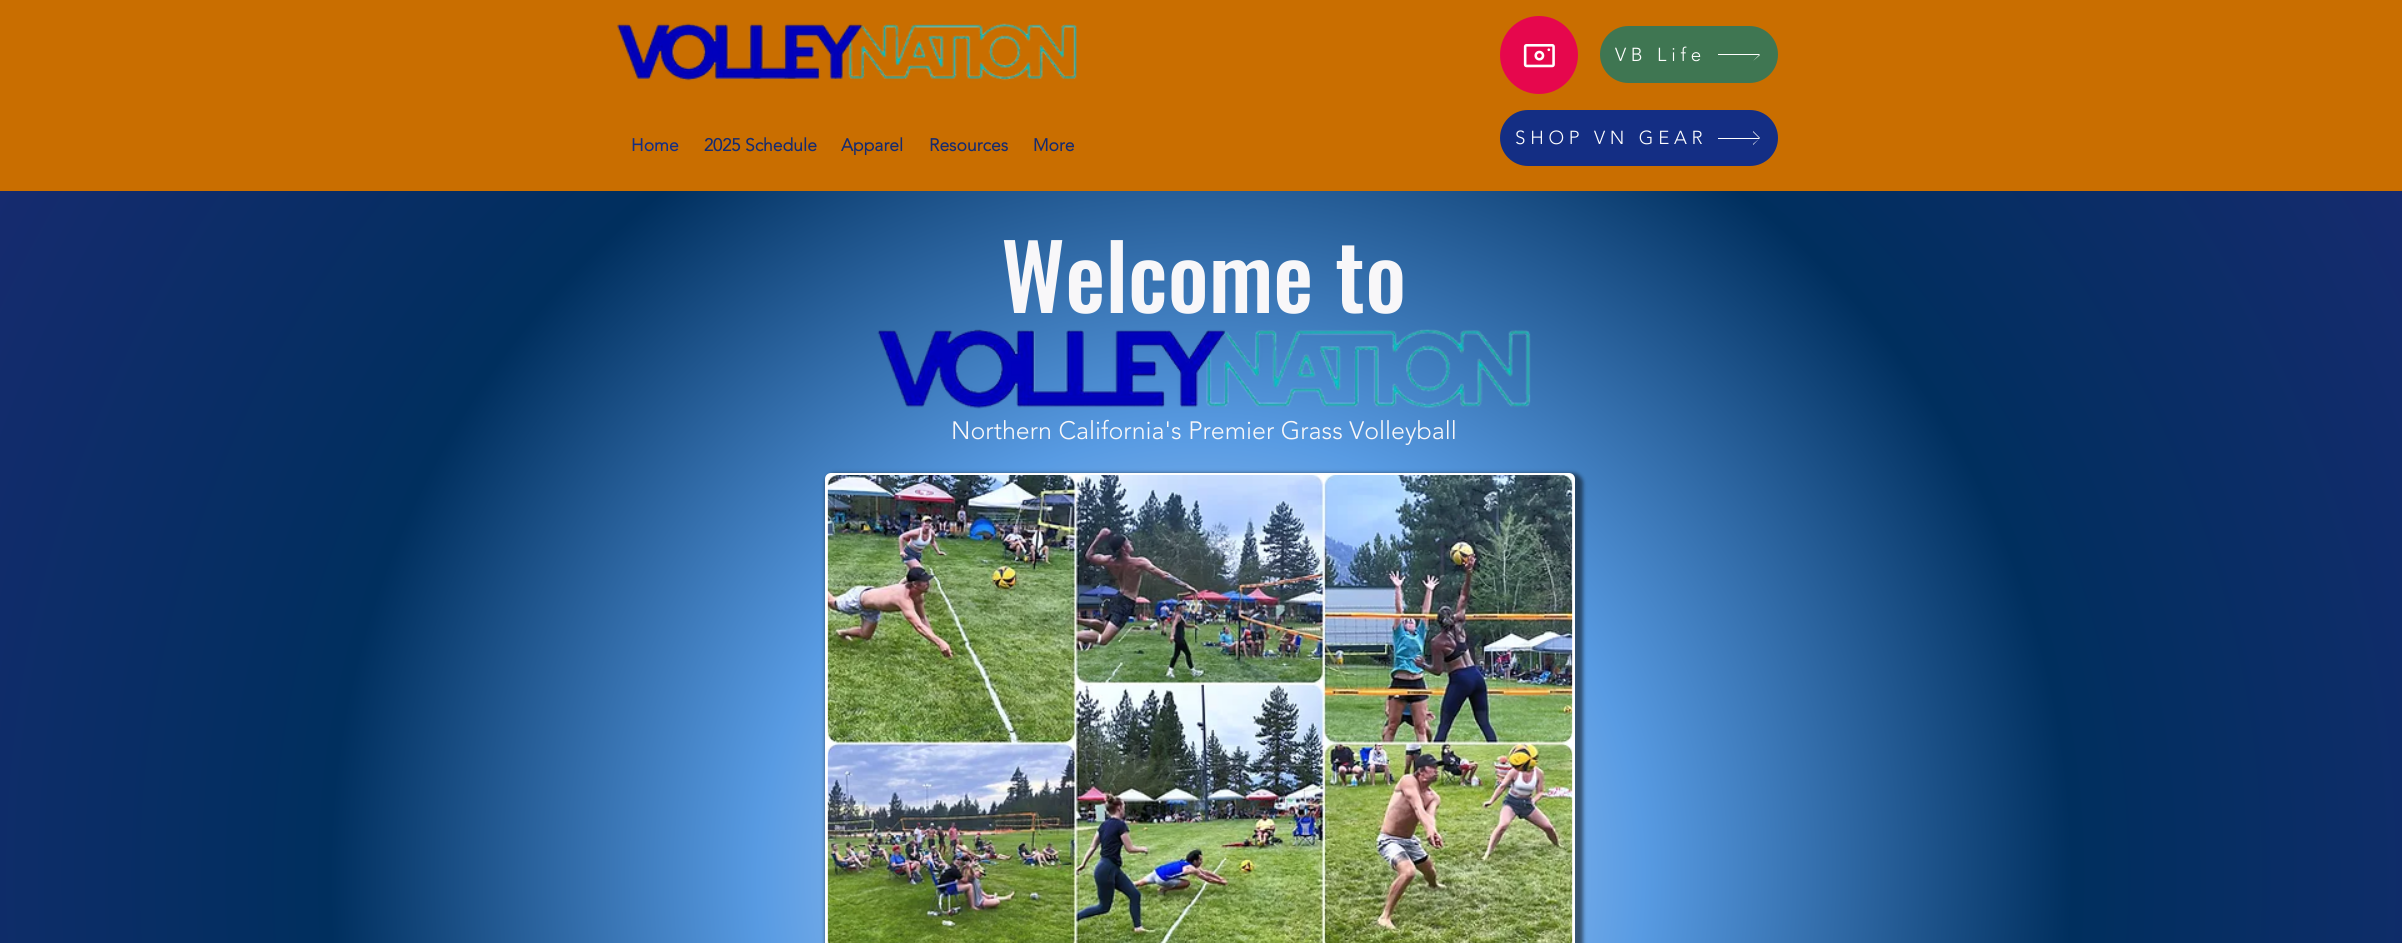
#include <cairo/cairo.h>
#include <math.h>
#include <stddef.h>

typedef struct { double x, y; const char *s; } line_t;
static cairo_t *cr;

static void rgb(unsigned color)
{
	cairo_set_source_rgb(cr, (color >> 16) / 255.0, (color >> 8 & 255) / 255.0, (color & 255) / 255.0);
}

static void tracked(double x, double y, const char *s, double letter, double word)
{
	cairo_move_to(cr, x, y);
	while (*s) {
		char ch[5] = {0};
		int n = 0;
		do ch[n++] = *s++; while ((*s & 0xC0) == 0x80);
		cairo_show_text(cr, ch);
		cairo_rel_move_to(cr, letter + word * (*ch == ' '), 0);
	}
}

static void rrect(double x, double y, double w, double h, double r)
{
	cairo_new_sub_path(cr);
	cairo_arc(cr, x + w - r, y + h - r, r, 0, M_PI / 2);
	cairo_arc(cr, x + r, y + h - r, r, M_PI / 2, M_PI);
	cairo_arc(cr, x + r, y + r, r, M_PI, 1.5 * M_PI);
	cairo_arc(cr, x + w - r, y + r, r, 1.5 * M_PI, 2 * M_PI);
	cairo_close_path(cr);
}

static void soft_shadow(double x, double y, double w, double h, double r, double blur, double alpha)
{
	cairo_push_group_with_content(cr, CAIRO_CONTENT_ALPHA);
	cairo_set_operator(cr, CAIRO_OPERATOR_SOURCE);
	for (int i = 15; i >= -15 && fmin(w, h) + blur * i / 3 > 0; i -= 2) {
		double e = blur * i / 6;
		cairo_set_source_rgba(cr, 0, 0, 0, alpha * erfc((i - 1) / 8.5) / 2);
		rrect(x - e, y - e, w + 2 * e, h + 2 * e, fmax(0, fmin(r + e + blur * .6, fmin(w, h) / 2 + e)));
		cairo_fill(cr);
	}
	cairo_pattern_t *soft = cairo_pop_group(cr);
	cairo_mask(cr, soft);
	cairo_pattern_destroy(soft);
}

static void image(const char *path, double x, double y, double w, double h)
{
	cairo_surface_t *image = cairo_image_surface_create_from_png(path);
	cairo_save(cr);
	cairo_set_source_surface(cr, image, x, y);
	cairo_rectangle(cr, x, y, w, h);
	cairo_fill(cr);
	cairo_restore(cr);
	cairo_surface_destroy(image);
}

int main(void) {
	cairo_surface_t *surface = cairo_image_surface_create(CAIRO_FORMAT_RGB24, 2402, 943);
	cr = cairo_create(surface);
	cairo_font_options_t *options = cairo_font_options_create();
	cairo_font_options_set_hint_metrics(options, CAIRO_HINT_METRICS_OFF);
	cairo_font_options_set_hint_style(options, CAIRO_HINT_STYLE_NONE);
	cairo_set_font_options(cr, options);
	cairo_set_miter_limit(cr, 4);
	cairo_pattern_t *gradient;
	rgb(0xffffff);
	cairo_paint(cr);
	rgb(0xc96e00);
	cairo_rectangle(cr, 0, 0, 2402, 191);
	cairo_fill(cr);
	image("img/1.png", 617, 23, 460, 58);
	rgb(0xe6074d);
	cairo_arc(cr, 1539, 55, 39, 0, 2 * M_PI);
	cairo_fill(cr);
	image("img/2.png", 1523, 44, 32, 24);
	rgb(0x3f7652);
	rrect(1600, 26, 178, 57, 28.5);
	cairo_fill(cr);
	rgb(0xffffff);
	cairo_new_path(cr);
	cairo_move_to(cr, 1753, 48);
	cairo_line_to(cr, 1759, 54);
	cairo_line_to(cr, 1718, 54);
	cairo_line_to(cr, 1718, 55);
	cairo_line_to(cr, 1759, 55);
	cairo_line_to(cr, 1753, 61);
	cairo_line_to(cr, 1760, 55);
	cairo_close_path(cr);
	cairo_fill(cr);
	rgb(0x142e84);
	rrect(1500, 110, 278, 56, 28);
	cairo_fill(cr);
	rgb(0xffffff);
	cairo_new_path(cr);
	cairo_move_to(cr, 1753, 131);
	cairo_line_to(cr, 1753, 132);
	cairo_line_to(cr, 1759, 138);
	cairo_line_to(cr, 1718, 138);
	cairo_line_to(cr, 1718, 139);
	cairo_line_to(cr, 1759, 139);
	cairo_line_to(cr, 1753, 144);
	cairo_line_to(cr, 1753, 145);
	cairo_line_to(cr, 1760, 138);
	cairo_close_path(cr);
	cairo_fill(cr);
	gradient = cairo_pattern_create_radial(1201, 877, 0, 1201, 877, 1383);
	cairo_pattern_add_color_stop_rgba(gradient, 0, 0.894, 0.922, 0.988, 1);
	cairo_pattern_add_color_stop_rgba(gradient, 0.32, 0.345, 0.608, 0.89, 1);
	cairo_pattern_add_color_stop_rgba(gradient, 0.63, 0, 0.184, 0.369, 1);
	cairo_pattern_add_color_stop_rgba(gradient, 1, 0.086, 0.169, 0.435, 1);
	cairo_set_source(cr, gradient);
	cairo_pattern_destroy(gradient);
	cairo_rectangle(cr, 0, 191, 2402, 752);
	cairo_fill(cr);
	image("img/3.png", 877, 329, 654, 80);
	rgb(0x000000);
	soft_shadow(825, 473, 758, 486, 10, 2, 0.5);
	rrect(826.5, 474.5, 747, 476, 4.5);
	rgb(0xffffff);
	cairo_set_line_width(cr, 3);
	cairo_stroke(cr);
	image("img/4.png", 827, 475, 746, 468);
	cairo_select_font_face(cr, "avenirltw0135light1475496 Light", CAIRO_FONT_SLANT_NORMAL, CAIRO_FONT_WEIGHT_NORMAL);
	cairo_set_font_size(cr, 18.75);
	tracked(1615, 61, "VB Life", 4.75, 0);
	cairo_select_font_face(cr, "avenirltw0135light1475496", CAIRO_FONT_SLANT_NORMAL, CAIRO_FONT_WEIGHT_BOLD);
	cairo_set_font_size(cr, 17.5);
	rgb(0x142e84);
	cairo_move_to(cr, 631, 151);
	cairo_show_text(cr, "Home");
	rgb(0x162b6f);
	{
		static const line_t items[] = {
			{704, 151, "2025 Schedule"},
			{841, 151, "Apparel"},
			{929, 151, "Resources"},
			{1033, 151, "More"},
		};
		for (size_t i = 0; i < sizeof items / sizeof *items; i++) {
			cairo_move_to(cr, items[i].x, items[i].y);
			cairo_show_text(cr, items[i].s);
		}
	}
	cairo_select_font_face(cr, "avenirltw0135light1475496 Light", CAIRO_FONT_SLANT_NORMAL, CAIRO_FONT_WEIGHT_NORMAL);
	cairo_set_font_size(cr, 18.75);
	rgb(0xffffff);
	tracked(1515, 144, "SHOP VN GEAR", 4.75, 0);
	cairo_select_font_face(cr, "Oswald Medium", CAIRO_FONT_SLANT_NORMAL, CAIRO_FONT_WEIGHT_NORMAL);
	cairo_set_font_size(cr, 90);
	rgb(0xf8f7f9);
	cairo_move_to(cr, 1001, 313);
	cairo_show_text(cr, "Welcome to");
	cairo_select_font_face(cr, "avenirltw0135light1475496 Light", CAIRO_FONT_SLANT_NORMAL, CAIRO_FONT_WEIGHT_NORMAL);
	cairo_set_font_size(cr, 25);
	cairo_move_to(cr, 951, 439);
	cairo_show_text(cr, "Northern California's Premier Grass Volleyball");
	cairo_surface_write_to_png(surface, "page.png");
	cairo_font_options_destroy(options);
	cairo_destroy(cr);
	cairo_surface_destroy(surface);
	return 0;
}
